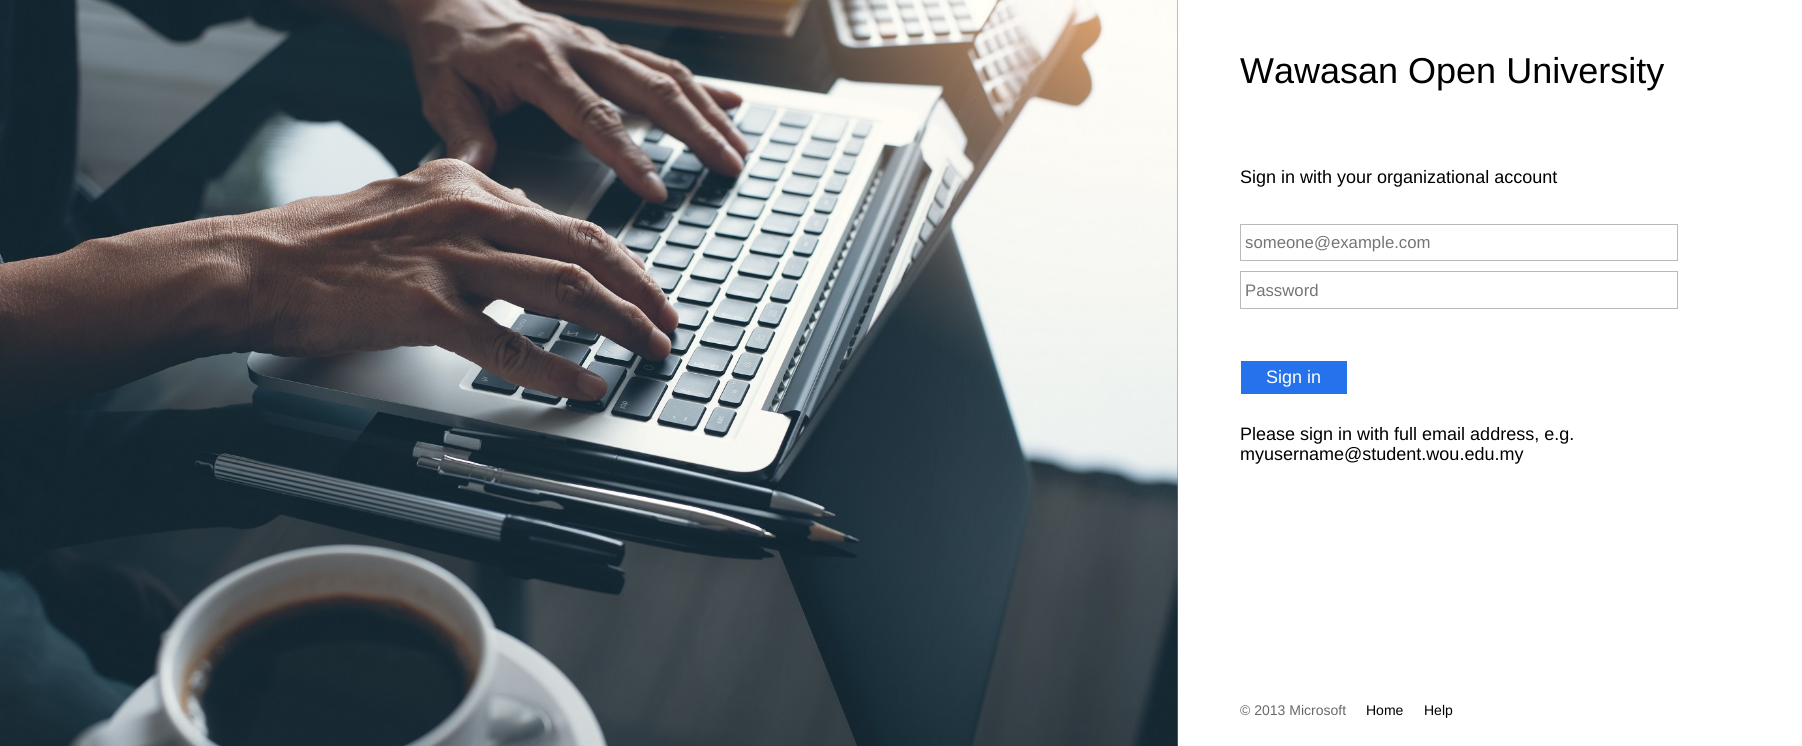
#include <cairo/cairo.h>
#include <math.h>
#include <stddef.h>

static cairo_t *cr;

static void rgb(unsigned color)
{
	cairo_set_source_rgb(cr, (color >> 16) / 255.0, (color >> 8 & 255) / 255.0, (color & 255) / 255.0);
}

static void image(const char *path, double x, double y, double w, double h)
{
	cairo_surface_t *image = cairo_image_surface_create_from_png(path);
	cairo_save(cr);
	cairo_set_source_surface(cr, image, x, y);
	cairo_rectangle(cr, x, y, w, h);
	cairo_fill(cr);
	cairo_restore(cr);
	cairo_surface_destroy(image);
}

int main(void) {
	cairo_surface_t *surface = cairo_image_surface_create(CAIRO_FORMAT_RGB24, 1802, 746);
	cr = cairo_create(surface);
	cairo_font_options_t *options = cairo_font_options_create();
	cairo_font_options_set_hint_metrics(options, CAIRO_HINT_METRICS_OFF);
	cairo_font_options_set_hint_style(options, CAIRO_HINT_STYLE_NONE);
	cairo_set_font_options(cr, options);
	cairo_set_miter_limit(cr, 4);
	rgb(0x4488dd);
	cairo_paint(cr);
	image("img/1.png", 0, 0, 1178, 746);
	rgb(0xffffff);
	cairo_rectangle(cr, 1178, 0, 624, 746);
	cairo_fill(cr);
	cairo_rectangle(cr, 1240.5, 224.5, 437, 36);
	rgb(0xbababa);
	cairo_set_line_width(cr, 1);
	cairo_stroke(cr);
	cairo_rectangle(cr, 1240.5, 271.5, 437, 37);
	cairo_stroke(cr);
	rgb(0x2672ec);
	cairo_rectangle(cr, 1241, 361, 106, 33);
	cairo_fill(cr);
	cairo_select_font_face(cr, "Liberation Sans", CAIRO_FONT_SLANT_NORMAL, CAIRO_FONT_WEIGHT_NORMAL);
	cairo_set_font_size(cr, 36);
	rgb(0x000000);
	cairo_move_to(cr, 1240, 83);
	cairo_show_text(cr, "Wawasan Open University");
	cairo_set_font_size(cr, 18);
	cairo_move_to(cr, 1240, 183);
	cairo_show_text(cr, "Sign in with your organizational account");
	cairo_set_font_size(cr, 16.75);
	rgb(0x757575);
	cairo_move_to(cr, 1245, 248);
	cairo_show_text(cr, "someone@example.com");
	cairo_move_to(cr, 1245, 296);
	cairo_show_text(cr, "Password");
	cairo_set_font_size(cr, 18);
	rgb(0xffffff);
	cairo_move_to(cr, 1266, 383);
	cairo_show_text(cr, "Sign in");
	rgb(0x000000);
	cairo_move_to(cr, 1240, 440);
	cairo_show_text(cr, "Please sign in with full email address, e.g.");
	cairo_move_to(cr, 1240, 460);
	cairo_show_text(cr, "myusername@student.wou.edu.my");
	cairo_set_font_size(cr, 14);
	rgb(0x696969);
	cairo_move_to(cr, 1240, 715);
	cairo_show_text(cr, "© 2013 Microsoft");
	rgb(0x000000);
	cairo_move_to(cr, 1366, 715);
	cairo_show_text(cr, "Home");
	cairo_move_to(cr, 1424, 715);
	cairo_show_text(cr, "Help");
	cairo_surface_write_to_png(surface, "page.png");
	cairo_font_options_destroy(options);
	cairo_destroy(cr);
	cairo_surface_destroy(surface);
	return 0;
}
